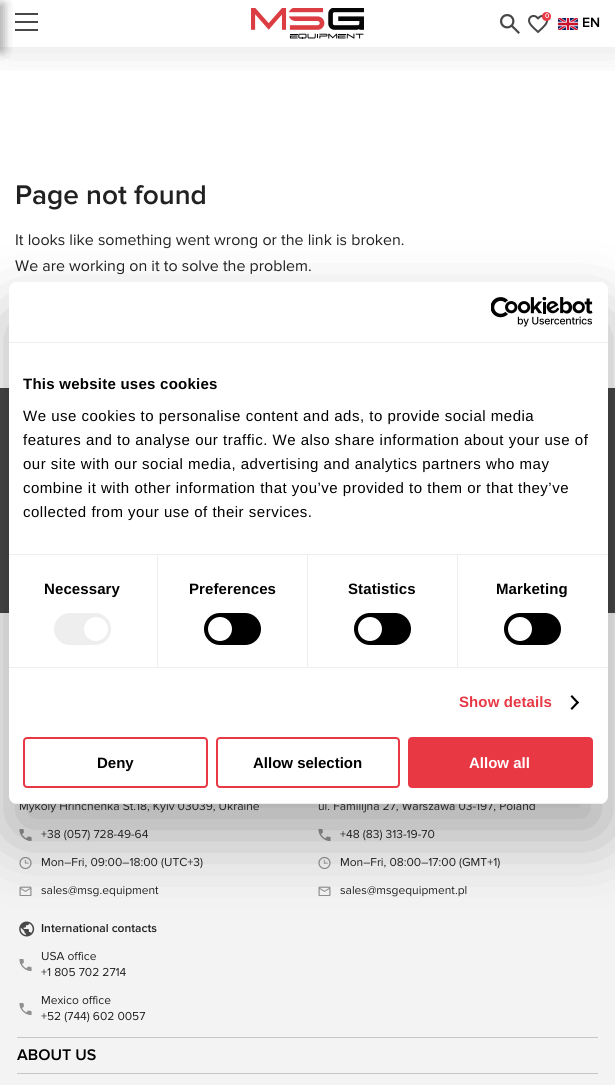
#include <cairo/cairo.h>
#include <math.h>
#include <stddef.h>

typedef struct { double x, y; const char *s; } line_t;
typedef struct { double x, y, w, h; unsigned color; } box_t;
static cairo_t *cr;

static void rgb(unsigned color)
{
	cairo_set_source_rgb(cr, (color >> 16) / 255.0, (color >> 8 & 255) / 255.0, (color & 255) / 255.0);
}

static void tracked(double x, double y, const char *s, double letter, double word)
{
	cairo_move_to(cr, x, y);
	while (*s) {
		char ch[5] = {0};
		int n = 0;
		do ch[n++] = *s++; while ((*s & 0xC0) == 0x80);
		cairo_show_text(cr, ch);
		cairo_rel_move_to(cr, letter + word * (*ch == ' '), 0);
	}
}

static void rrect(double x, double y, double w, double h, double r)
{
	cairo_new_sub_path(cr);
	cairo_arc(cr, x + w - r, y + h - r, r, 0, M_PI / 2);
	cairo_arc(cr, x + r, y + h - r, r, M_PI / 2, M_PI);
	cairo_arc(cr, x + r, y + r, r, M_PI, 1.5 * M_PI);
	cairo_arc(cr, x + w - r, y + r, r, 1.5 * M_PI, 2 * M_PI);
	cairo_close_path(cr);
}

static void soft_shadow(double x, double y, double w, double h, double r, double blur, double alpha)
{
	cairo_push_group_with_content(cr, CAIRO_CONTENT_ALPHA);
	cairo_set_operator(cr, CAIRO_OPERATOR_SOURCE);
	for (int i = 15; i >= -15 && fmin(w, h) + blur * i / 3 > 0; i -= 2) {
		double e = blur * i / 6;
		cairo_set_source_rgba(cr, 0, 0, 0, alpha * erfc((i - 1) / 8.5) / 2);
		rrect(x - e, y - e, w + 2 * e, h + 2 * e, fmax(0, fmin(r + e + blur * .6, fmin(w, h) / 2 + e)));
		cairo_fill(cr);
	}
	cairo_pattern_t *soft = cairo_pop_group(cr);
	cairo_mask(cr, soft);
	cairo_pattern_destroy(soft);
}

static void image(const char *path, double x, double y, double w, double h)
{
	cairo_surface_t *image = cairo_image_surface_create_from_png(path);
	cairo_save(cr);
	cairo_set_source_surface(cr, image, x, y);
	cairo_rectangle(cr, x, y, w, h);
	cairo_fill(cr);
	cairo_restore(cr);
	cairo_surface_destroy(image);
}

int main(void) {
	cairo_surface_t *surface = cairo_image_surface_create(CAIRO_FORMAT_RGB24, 615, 1085);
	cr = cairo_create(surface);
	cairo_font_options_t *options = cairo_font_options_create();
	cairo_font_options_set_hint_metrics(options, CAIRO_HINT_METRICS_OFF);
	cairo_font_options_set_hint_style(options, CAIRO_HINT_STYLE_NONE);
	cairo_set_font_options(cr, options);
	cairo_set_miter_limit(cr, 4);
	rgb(0xffffff);
	cairo_paint(cr);
	cairo_save(cr);
	cairo_rectangle(cr, 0, 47, 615, 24);
	cairo_clip(cr);
	rgb(0x353535);
	soft_shadow(4, 4, 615, 47, 0, 20, 0.13);
	cairo_restore(cr);
	{
		static const box_t items[] = {
			{15, 13, 23, 2, 0x474747},
			{15, 21, 23, 2, 0x474747},
			{15, 29, 23, 2, 0x474747},
		};
		for (size_t i = 0; i < sizeof items / sizeof *items; i++) {
			rgb(items[i].color);
			cairo_rectangle(cr, items[i].x, items[i].y, items[i].w, items[i].h);
			cairo_fill(cr);
		}
	}
	rgb(0x353535);
	soft_shadow(-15, 4, 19, 48, 0, 5, 0.1);
	soft_shadow(-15, 4, 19, 44, 0, 5, 0.1);
	soft_shadow(-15, 4, 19, 48, 0, 5, 0.1);
	soft_shadow(-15, 4, 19, 48, 0, 5, 0.1);
	image("img/1.png", 251, 8, 113, 31);
	image("img/2.png", 500, 14, 20, 20);
	image("img/3.png", 528, 14, 20, 20);
	rgb(0xe73844);
	cairo_arc(cr, 546.5, 16.5, 4.5, 0, 2 * M_PI);
	cairo_fill(cr);
	rgb(0x353535);
	soft_shadow(-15, 4, 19, 48, 0, 5, 0.1);
	image("img/4.png", 558, 18, 20, 12);
	rgb(0x474747);
	cairo_rectangle(cr, 0, 388, 615, 225);
	cairo_fill(cr);
	rgb(0xf3f3f3);
	cairo_rectangle(cr, 0, 613, 615, 472);
	cairo_fill(cr);
	image("img/6.png", 19, 829, 13, 13);
	image("img/7.png", 19, 857, 13, 13);
	image("img/8.png", 19, 886, 13, 10);
	image("img/6.png", 318, 829, 13, 13);
	image("img/7.png", 318, 857, 13, 13);
	image("img/8.png", 318, 886, 13, 10);
	image("img/9.png", 19, 921, 16, 16);
	rgb(0x000000);
	soft_shadow(9, 314, 599, 522, 8, 34, 0.3);
	image("img/6.png", 19, 959, 13, 13);
	image("img/6.png", 19, 1003, 13, 13);
	rgb(0xc6c6c6);
	cairo_rectangle(cr, 17, 1037, 581, 1);
	cairo_fill(cr);
	cairo_rectangle(cr, 17, 1073, 581, 1);
	cairo_fill(cr);
	cairo_select_font_face(cr, "Proxima Nova SemiBold", CAIRO_FONT_SLANT_NORMAL, CAIRO_FONT_WEIGHT_NORMAL);
	cairo_set_font_size(cr, 7);
	rgb(0xffffff);
	cairo_move_to(cr, 545, 18);
	cairo_show_text(cr, "0");
	cairo_set_font_size(cr, 14);
	rgb(0x000000);
	cairo_move_to(cr, 582, 27);
	cairo_show_text(cr, "EN");
	cairo_set_font_size(cr, 28);
	rgb(0x212121);
	cairo_move_to(cr, 15, 204);
	cairo_show_text(cr, "Page not found");
	cairo_select_font_face(cr, "Proxima Nova", CAIRO_FONT_SLANT_NORMAL, CAIRO_FONT_WEIGHT_NORMAL);
	cairo_set_font_size(cr, 16);
	cairo_move_to(cr, 15, 245);
	cairo_show_text(cr, "It looks like something went wrong or the link is broken.");
	cairo_move_to(cr, 15, 271);
	cairo_show_text(cr, "We are working on it to solve the problem.");
	cairo_set_font_size(cr, 12);
	{
		static const line_t items[] = {
			{19, 810, "Mykoly Hrinchenka St.18, Kyiv 03039, Ukraine"},
			{41, 838, "+38 (057) 728-49-64"},
			{41, 866, "Mon–Fri, 09:00–18:00 (UTC+3)"},
			{41, 894, "sales@msg.equipment"},
			{318, 810, "ul. Familijna 27, Warszawa 03-197, Poland"},
		};
		for (size_t i = 0; i < sizeof items / sizeof *items; i++) {
			cairo_move_to(cr, items[i].x, items[i].y);
			cairo_show_text(cr, items[i].s);
		}
	}
	rgb(0xffffff);
	rrect(9, 282, 599, 522, 8);
	cairo_fill(cr);
	rgb(0xe73844);
	rrect(409, 738, 183, 49, 3);
	cairo_fill_preserve(cr);
	cairo_stroke(cr);
	cairo_select_font_face(cr, "Liberation Sans", CAIRO_FONT_SLANT_NORMAL, CAIRO_FONT_WEIGHT_BOLD);
	cairo_set_font_size(cr, 15);
	rgb(0xffffff);
	cairo_move_to(cr, 469, 768);
	cairo_show_text(cr, "Allow all");
	rrect(217, 738, 182, 49, 3);
	rgb(0xe73844);
	cairo_stroke(cr);
	rgb(0x000000);
	cairo_move_to(cr, 253, 768);
	cairo_show_text(cr, "Allow selection");
	rrect(24, 738, 183, 49, 3);
	rgb(0xe73844);
	cairo_stroke(cr);
	rgb(0x000000);
	cairo_move_to(cr, 97, 768);
	cairo_show_text(cr, "Deny");
	cairo_save(cr);
	rrect(9, 282, 599, 522, 8);
	cairo_clip(cr);
	rgb(0xeeeeee);
	cairo_rectangle(cr, 9, 803, 599, 1);
	cairo_fill(cr);
	cairo_restore(cr);
	cairo_new_path(cr);
	cairo_move_to(cr, 572, 695);
	cairo_line_to(cr, 579, 702.5);
	cairo_line_to(cr, 577.5, 704);
	cairo_line_to(cr, 570.5, 696.5);
	cairo_close_path(cr);
	cairo_fill(cr);
	cairo_new_path(cr);
	cairo_move_to(cr, 577.5, 701);
	cairo_line_to(cr, 579, 702.5);
	cairo_line_to(cr, 572, 710);
	cairo_line_to(cr, 570.5, 708.5);
	cairo_close_path(cr);
	cairo_fill(cr);
	rrect(504, 613, 57, 32, 16);
	cairo_fill(cr);
	rgb(0xffffff);
	cairo_arc(cr, 520, 629, 12, 0, 2 * M_PI);
	cairo_fill(cr);
	rgb(0x000000);
	rrect(354, 613, 57, 32, 16);
	cairo_fill(cr);
	rgb(0xffffff);
	cairo_arc(cr, 370, 629, 12, 0, 2 * M_PI);
	cairo_fill(cr);
	rgb(0x000000);
	rrect(204, 613, 57, 32, 16);
	cairo_fill(cr);
	rgb(0xffffff);
	cairo_arc(cr, 220, 629, 12, 0, 2 * M_PI);
	cairo_fill(cr);
	rgb(0xeeeeee);
	rrect(54, 613, 57, 32, 16);
	cairo_fill(cr);
	rgb(0xffffff);
	cairo_arc(cr, 96, 629, 12, 0, 2 * M_PI);
	cairo_fill(cr);
	cairo_select_font_face(cr, "Liberation Sans", CAIRO_FONT_SLANT_NORMAL, CAIRO_FONT_WEIGHT_NORMAL);
	rgb(0x000000);
	{
		static const line_t items[] = {
			{23, 517, "collected from your use of their services."},
			{23, 493, "combine it with other information that you’ve provided to them or that they’ve"},
			{23, 469, "our site with our social media, advertising and analytics partners who may"},
			{23, 445, "features and to analyse our traffic. We also share information about your use of"},
			{23, 421, "We use cookies to personalise content and ads, to provide social media"},
		};
		for (size_t i = 0; i < sizeof items / sizeof *items; i++) {
			tracked(items[i].x, items[i].y, items[i].s, 0.5, 0);
		}
	}
	cairo_select_font_face(cr, "Liberation Sans", CAIRO_FONT_SLANT_NORMAL, CAIRO_FONT_WEIGHT_BOLD);
	tracked(23, 389, "This website uses cookies", 0.25, 0);
	rgb(0xeeeeee);
	cairo_rectangle(cr, 9, 554, 599, 1);
	cairo_fill(cr);
	rgb(0xe73844);
	tracked(459, 707, "Show details", 0.1, 0);
	rgb(0x000000);
	tracked(496, 594, "Marketing", 0.1, 0);
	tracked(348, 594, "Statistics", 0.1, 0);
	rgb(0xeeeeee);
	cairo_rectangle(cr, 457, 555, 1, 112);
	cairo_fill(cr);
	rgb(0x000000);
	tracked(189, 594, "Preferences", 0.1, 0);
	rgb(0xeeeeee);
	cairo_rectangle(cr, 307, 555, 1, 112);
	cairo_fill(cr);
	rgb(0x000000);
	tracked(44, 594, "Necessary", 0.1, 0);
	rgb(0xeeeeee);
	cairo_rectangle(cr, 157, 555, 1, 112);
	cairo_fill(cr);
	cairo_rectangle(cr, 9, 667, 599, 1);
	cairo_fill(cr);
	image("img/5.png", 491, 297, 102, 30);
	cairo_rectangle(cr, 9, 342, 599, 1);
	cairo_fill(cr);
	cairo_select_font_face(cr, "Proxima Nova", CAIRO_FONT_SLANT_NORMAL, CAIRO_FONT_WEIGHT_NORMAL);
	cairo_set_font_size(cr, 12);
	rgb(0x212121);
	{
		static const line_t items[] = {
			{340, 838, "+48 (83) 313-19-70"},
			{340, 866, "Mon–Fri, 08:00–17:00 (GMT+1)"},
			{340, 894, "sales@msgequipment.pl"},
		};
		for (size_t i = 0; i < sizeof items / sizeof *items; i++) {
			cairo_move_to(cr, items[i].x, items[i].y);
			cairo_show_text(cr, items[i].s);
		}
	}
	cairo_select_font_face(cr, "Proxima Nova SemiBold", CAIRO_FONT_SLANT_NORMAL, CAIRO_FONT_WEIGHT_NORMAL);
	cairo_move_to(cr, 41, 932);
	cairo_show_text(cr, "International contacts");
	cairo_select_font_face(cr, "Proxima Nova", CAIRO_FONT_SLANT_NORMAL, CAIRO_FONT_WEIGHT_NORMAL);
	{
		static const line_t items[] = {
			{41, 960, "USA office"},
			{41, 976, "+1 805 702 2714"},
			{41, 1004, "Mexico office"},
			{41, 1020, "+52 (744) 602 0057"},
		};
		for (size_t i = 0; i < sizeof items / sizeof *items; i++) {
			cairo_move_to(cr, items[i].x, items[i].y);
			cairo_show_text(cr, items[i].s);
		}
	}
	cairo_select_font_face(cr, "Proxima Nova SemiBold", CAIRO_FONT_SLANT_NORMAL, CAIRO_FONT_WEIGHT_NORMAL);
	cairo_set_font_size(cr, 16);
	rgb(0x000000);
	cairo_move_to(cr, 17, 1060);
	cairo_show_text(cr, "ABOUT US");
	cairo_surface_write_to_png(surface, "page.png");
	cairo_font_options_destroy(options);
	cairo_destroy(cr);
	cairo_surface_destroy(surface);
	return 0;
}
